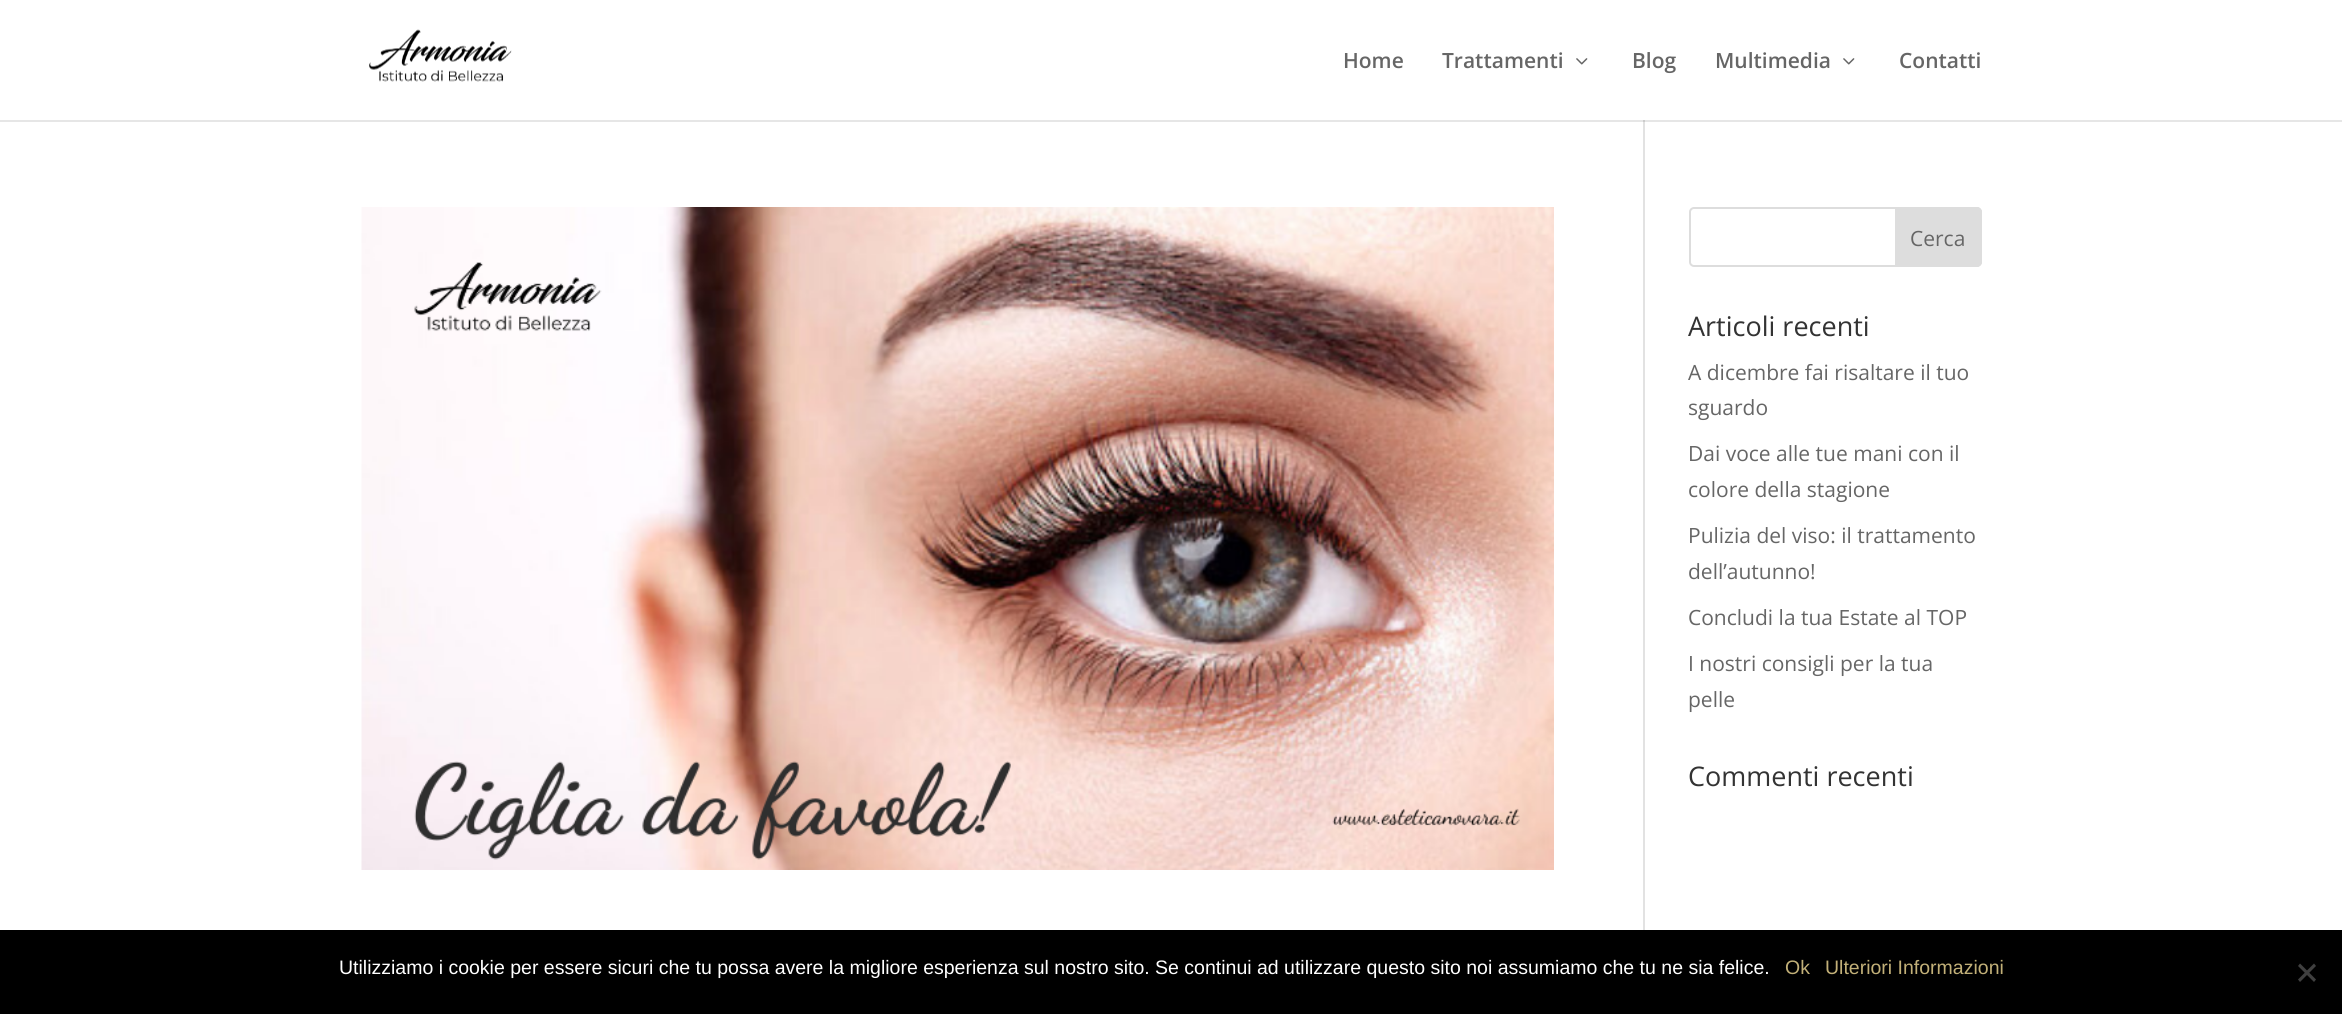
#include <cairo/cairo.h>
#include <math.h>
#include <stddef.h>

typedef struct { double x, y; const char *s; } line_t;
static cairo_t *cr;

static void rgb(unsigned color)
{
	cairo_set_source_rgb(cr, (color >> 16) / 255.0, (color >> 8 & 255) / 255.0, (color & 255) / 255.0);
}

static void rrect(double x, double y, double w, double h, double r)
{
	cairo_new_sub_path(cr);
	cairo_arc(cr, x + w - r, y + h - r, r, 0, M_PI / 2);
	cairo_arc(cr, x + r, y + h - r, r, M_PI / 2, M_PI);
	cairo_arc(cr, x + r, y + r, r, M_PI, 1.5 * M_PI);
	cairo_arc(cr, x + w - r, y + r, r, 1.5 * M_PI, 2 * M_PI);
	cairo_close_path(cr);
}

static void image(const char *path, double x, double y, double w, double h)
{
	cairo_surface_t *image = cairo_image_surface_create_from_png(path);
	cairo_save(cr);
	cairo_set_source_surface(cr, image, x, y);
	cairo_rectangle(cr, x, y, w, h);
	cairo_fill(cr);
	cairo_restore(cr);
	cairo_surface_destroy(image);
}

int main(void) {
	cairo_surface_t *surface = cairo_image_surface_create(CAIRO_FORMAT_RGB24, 2342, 1014);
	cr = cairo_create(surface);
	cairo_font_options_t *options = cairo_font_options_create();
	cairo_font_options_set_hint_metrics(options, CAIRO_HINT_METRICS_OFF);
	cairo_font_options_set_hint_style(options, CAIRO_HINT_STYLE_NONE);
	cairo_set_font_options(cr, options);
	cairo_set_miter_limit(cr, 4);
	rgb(0xffffff);
	cairo_paint(cr);
	rgb(0xe6e6e6);
	cairo_rectangle(cr, 0, 120, 2342, 2);
	cairo_fill(cr);
	image("img/1.png", 369, 29, 143, 53);
	image("img/2.png", 1576, 58, 12, 7);
	image("img/2.png", 1843, 58, 12, 7);
	rgb(0xe2e2e2);
	cairo_rectangle(cr, 1643, 120, 2, 810);
	cairo_fill(cr);
	rgb(0xcbcbcb);
	cairo_rectangle(cr, 1643, 120, 2, 2);
	cairo_fill(cr);
	image("img/3.png", 361, 207, 1193, 663);
	rrect(1690, 208, 291, 58, 4);
	rgb(0xdddddd);
	cairo_stroke(cr);
	cairo_new_path(cr);
	cairo_move_to(cr, 1896, 208);
	cairo_line_to(cr, 1977, 208);
	cairo_curve_to(cr, 1979, 208, 1981, 210, 1981, 212);
	cairo_line_to(cr, 1981, 262);
	cairo_curve_to(cr, 1981, 264, 1979, 266, 1977, 266);
	cairo_line_to(cr, 1896, 266);
	cairo_close_path(cr);
	cairo_fill_preserve(cr);
	cairo_stroke(cr);
	rgb(0x000000);
	cairo_rectangle(cr, 0, 930, 2342, 84);
	cairo_fill(cr);
	rgb(0x404040);
	cairo_new_path(cr);
	cairo_move_to(cr, 2314, 963.5);
	cairo_line_to(cr, 2316, 966);
	cairo_line_to(cr, 2300, 982);
	cairo_line_to(cr, 2298, 979.5);
	cairo_close_path(cr);
	cairo_fill(cr);
	cairo_new_path(cr);
	cairo_move_to(cr, 2298, 966);
	cairo_line_to(cr, 2300, 963.5);
	cairo_line_to(cr, 2316, 979.5);
	cairo_line_to(cr, 2314, 982);
	cairo_close_path(cr);
	cairo_fill(cr);
	cairo_select_font_face(cr, "Open Sans SemiBold", CAIRO_FONT_SLANT_NORMAL, CAIRO_FONT_WEIGHT_NORMAL);
	cairo_set_font_size(cr, 21);
	rgb(0x666666);
	{
		static const line_t items[] = {
			{1343, 68, "Home"},
			{1442, 68, "Trattamenti"},
			{1632, 68, "Blog"},
			{1715, 68, "Multimedia"},
			{1899, 68, "Contatti"},
		};
		for (size_t i = 0; i < sizeof items / sizeof *items; i++) {
			cairo_move_to(cr, items[i].x, items[i].y);
			cairo_show_text(cr, items[i].s);
		}
	}
	cairo_select_font_face(cr, "Open Sans", CAIRO_FONT_SLANT_NORMAL, CAIRO_FONT_WEIGHT_NORMAL);
	cairo_move_to(cr, 1910, 246);
	cairo_show_text(cr, "Cerca");
	cairo_set_font_size(cr, 27);
	rgb(0x333333);
	cairo_move_to(cr, 1688, 336);
	cairo_show_text(cr, "Articoli recenti");
	cairo_set_font_size(cr, 21);
	rgb(0x666666);
	{
		static const line_t items[] = {
			{1688, 380, "A dicembre fai risaltare il tuo"},
			{1688, 415, "sguardo"},
			{1688, 461, "Dai voce alle tue mani con il"},
			{1688, 497, "colore della stagione"},
			{1688, 543, "Pulizia del viso: il trattamento"},
			{1688, 579, "dell’autunno!"},
			{1688, 625, "Concludi la tua Estate al TOP"},
			{1688, 671, "I nostri consigli per la tua"},
			{1688, 707, "pelle"},
		};
		for (size_t i = 0; i < sizeof items / sizeof *items; i++) {
			cairo_move_to(cr, items[i].x, items[i].y);
			cairo_show_text(cr, items[i].s);
		}
	}
	cairo_set_font_size(cr, 27);
	rgb(0x333333);
	cairo_move_to(cr, 1688, 786);
	cairo_show_text(cr, "Commenti recenti");
	cairo_select_font_face(cr, "Liberation Sans", CAIRO_FONT_SLANT_NORMAL, CAIRO_FONT_WEIGHT_NORMAL);
	cairo_set_font_size(cr, 19.5);
	rgb(0xffffff);
	cairo_move_to(cr, 339, 974);
	cairo_show_text(cr, "Utilizziamo i cookie per essere sicuri che tu possa avere la migliore esperienza sul nostro sito. Se continui ad utilizzare questo sito noi assumiamo che tu ne sia felice.");
	rgb(0xc2b078);
	cairo_move_to(cr, 1785, 974);
	cairo_show_text(cr, "Ok");
	cairo_move_to(cr, 1825, 974);
	cairo_show_text(cr, "Ulteriori Informazioni");
	cairo_surface_write_to_png(surface, "page.png");
	cairo_font_options_destroy(options);
	cairo_destroy(cr);
	cairo_surface_destroy(surface);
	return 0;
}
